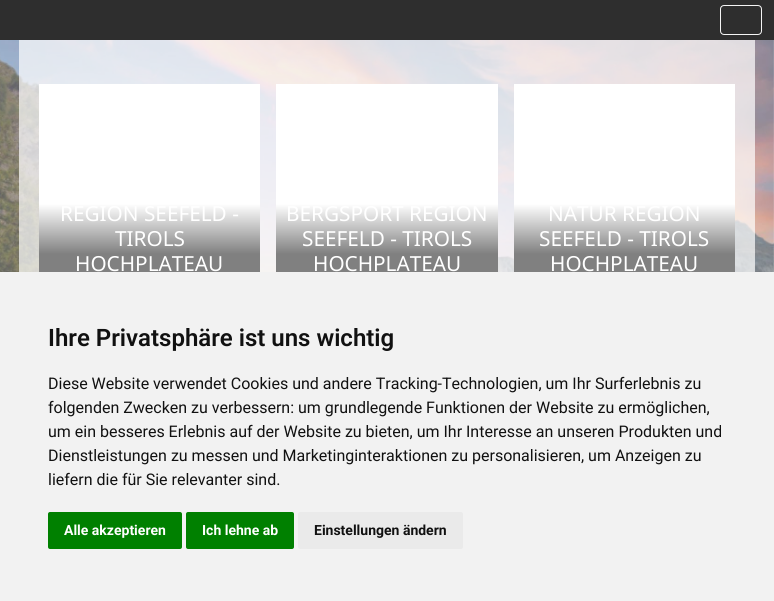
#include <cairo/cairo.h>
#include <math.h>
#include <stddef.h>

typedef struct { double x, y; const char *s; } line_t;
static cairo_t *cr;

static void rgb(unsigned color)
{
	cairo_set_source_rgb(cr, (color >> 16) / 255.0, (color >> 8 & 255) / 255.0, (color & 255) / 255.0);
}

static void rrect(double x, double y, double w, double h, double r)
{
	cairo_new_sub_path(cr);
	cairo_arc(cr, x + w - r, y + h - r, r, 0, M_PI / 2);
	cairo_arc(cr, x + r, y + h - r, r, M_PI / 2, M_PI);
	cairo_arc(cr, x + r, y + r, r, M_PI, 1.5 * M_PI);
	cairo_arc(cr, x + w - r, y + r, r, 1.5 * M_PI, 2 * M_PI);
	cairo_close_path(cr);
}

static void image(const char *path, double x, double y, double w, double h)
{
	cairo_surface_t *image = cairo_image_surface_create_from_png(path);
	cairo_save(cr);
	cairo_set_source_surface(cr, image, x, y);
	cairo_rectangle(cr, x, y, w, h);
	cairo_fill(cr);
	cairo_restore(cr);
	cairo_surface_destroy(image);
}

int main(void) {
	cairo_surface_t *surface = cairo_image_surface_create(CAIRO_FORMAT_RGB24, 774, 601);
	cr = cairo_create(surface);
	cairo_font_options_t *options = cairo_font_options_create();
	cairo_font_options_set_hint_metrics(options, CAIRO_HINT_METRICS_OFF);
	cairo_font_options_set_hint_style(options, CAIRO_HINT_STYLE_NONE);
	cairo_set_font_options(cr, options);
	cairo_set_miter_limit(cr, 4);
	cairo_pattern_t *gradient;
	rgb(0xffffff);
	cairo_paint(cr);
	image("img/1.png", 0, 40, 774, 232);
	rgb(0x2e2e2e);
	cairo_rectangle(cr, 0, 0, 774, 40);
	cairo_fill(cr);
	rrect(720.5, 5.5, 41, 29, 3.5);
	rgb(0xf5f5f5);
	cairo_set_line_width(cr, 1);
	cairo_stroke(cr);
	gradient = cairo_pattern_create_linear(150, 84, 150, 284);
	cairo_pattern_add_color_stop_rgba(gradient, 0.6, 1, 1, 1, 1);
	cairo_pattern_add_color_stop_rgba(gradient, 0.85, 0.502, 0.502, 0.502, 1);
	cairo_set_source(cr, gradient);
	cairo_pattern_destroy(gradient);
	cairo_rectangle(cr, 39, 84, 221, 188);
	cairo_fill(cr);
	gradient = cairo_pattern_create_linear(387, 84, 387, 284);
	cairo_pattern_add_color_stop_rgba(gradient, 0.6, 1, 1, 1, 1);
	cairo_pattern_add_color_stop_rgba(gradient, 0.85, 0.502, 0.502, 0.502, 1);
	cairo_set_source(cr, gradient);
	cairo_pattern_destroy(gradient);
	cairo_rectangle(cr, 276, 84, 222, 188);
	cairo_fill(cr);
	gradient = cairo_pattern_create_linear(625, 84, 625, 284);
	cairo_pattern_add_color_stop_rgba(gradient, 0.6, 1, 1, 1, 1);
	cairo_pattern_add_color_stop_rgba(gradient, 0.85, 0.502, 0.502, 0.502, 1);
	cairo_set_source(cr, gradient);
	cairo_pattern_destroy(gradient);
	cairo_rectangle(cr, 514, 84, 221, 188);
	cairo_fill(cr);
	rgb(0xf2f2f2);
	cairo_rectangle(cr, 0, 272, 774, 329);
	cairo_fill(cr);
	rgb(0x008000);
	rrect(48, 512, 134, 37, 2);
	cairo_fill(cr);
	rrect(186, 512, 108, 37, 2);
	cairo_fill(cr);
	rgb(0xeaeaea);
	rrect(298, 512, 165, 37, 2);
	cairo_fill(cr);
	cairo_select_font_face(cr, "Noto Sans", CAIRO_FONT_SLANT_NORMAL, CAIRO_FONT_WEIGHT_NORMAL);
	cairo_set_font_size(cr, 20.75);
	rgb(0xffffff);
	{
		static const line_t items[] = {
			{60, 221, "REGION SEEFELD -"},
			{115, 246, "TIROLS"},
			{75, 271, "HOCHPLATEAU"},
			{286, 221, "BERGSPORT REGION"},
			{302, 246, "SEEFELD - TIROLS"},
			{313, 271, "HOCHPLATEAU"},
			{548, 221, "NATUR REGION"},
			{539, 246, "SEEFELD - TIROLS"},
			{550, 271, "HOCHPLATEAU"},
		};
		for (size_t i = 0; i < sizeof items / sizeof *items; i++) {
			cairo_move_to(cr, items[i].x, items[i].y);
			cairo_show_text(cr, items[i].s);
		}
	}
	cairo_select_font_face(cr, "Roboto SemiBold", CAIRO_FONT_SLANT_NORMAL, CAIRO_FONT_WEIGHT_NORMAL);
	cairo_set_font_size(cr, 24);
	rgb(0x111111);
	cairo_move_to(cr, 48, 346);
	cairo_show_text(cr, "Ihre Privatsphäre ist uns wichtig");
	cairo_select_font_face(cr, "Roboto", CAIRO_FONT_SLANT_NORMAL, CAIRO_FONT_WEIGHT_NORMAL);
	cairo_set_font_size(cr, 16);
	{
		static const line_t items[] = {
			{48, 389, "Diese Website verwendet Cookies und andere Tracking-Technologien, um Ihr Surferlebnis zu"},
			{48, 413, "folgenden Zwecken zu verbessern: um grundlegende Funktionen der Website zu ermöglichen,"},
			{48, 437, "um ein besseres Erlebnis auf der Website zu bieten, um Ihr Interesse an unseren Produkten und"},
			{48, 461, "Dienstleistungen zu messen und Marketinginteraktionen zu personalisieren, um Anzeigen zu"},
			{48, 485, "liefern die für Sie relevanter sind."},
		};
		for (size_t i = 0; i < sizeof items / sizeof *items; i++) {
			cairo_move_to(cr, items[i].x, items[i].y);
			cairo_show_text(cr, items[i].s);
		}
	}
	cairo_select_font_face(cr, "Roboto", CAIRO_FONT_SLANT_NORMAL, CAIRO_FONT_WEIGHT_BOLD);
	cairo_set_font_size(cr, 14);
	rgb(0xffffff);
	cairo_move_to(cr, 64, 535);
	cairo_show_text(cr, "Alle akzeptieren");
	cairo_move_to(cr, 202, 535);
	cairo_show_text(cr, "Ich lehne ab");
	rgb(0x111111);
	cairo_move_to(cr, 314, 535);
	cairo_show_text(cr, "Einstellungen ändern");
	cairo_surface_write_to_png(surface, "page.png");
	cairo_font_options_destroy(options);
	cairo_destroy(cr);
	cairo_surface_destroy(surface);
	return 0;
}
